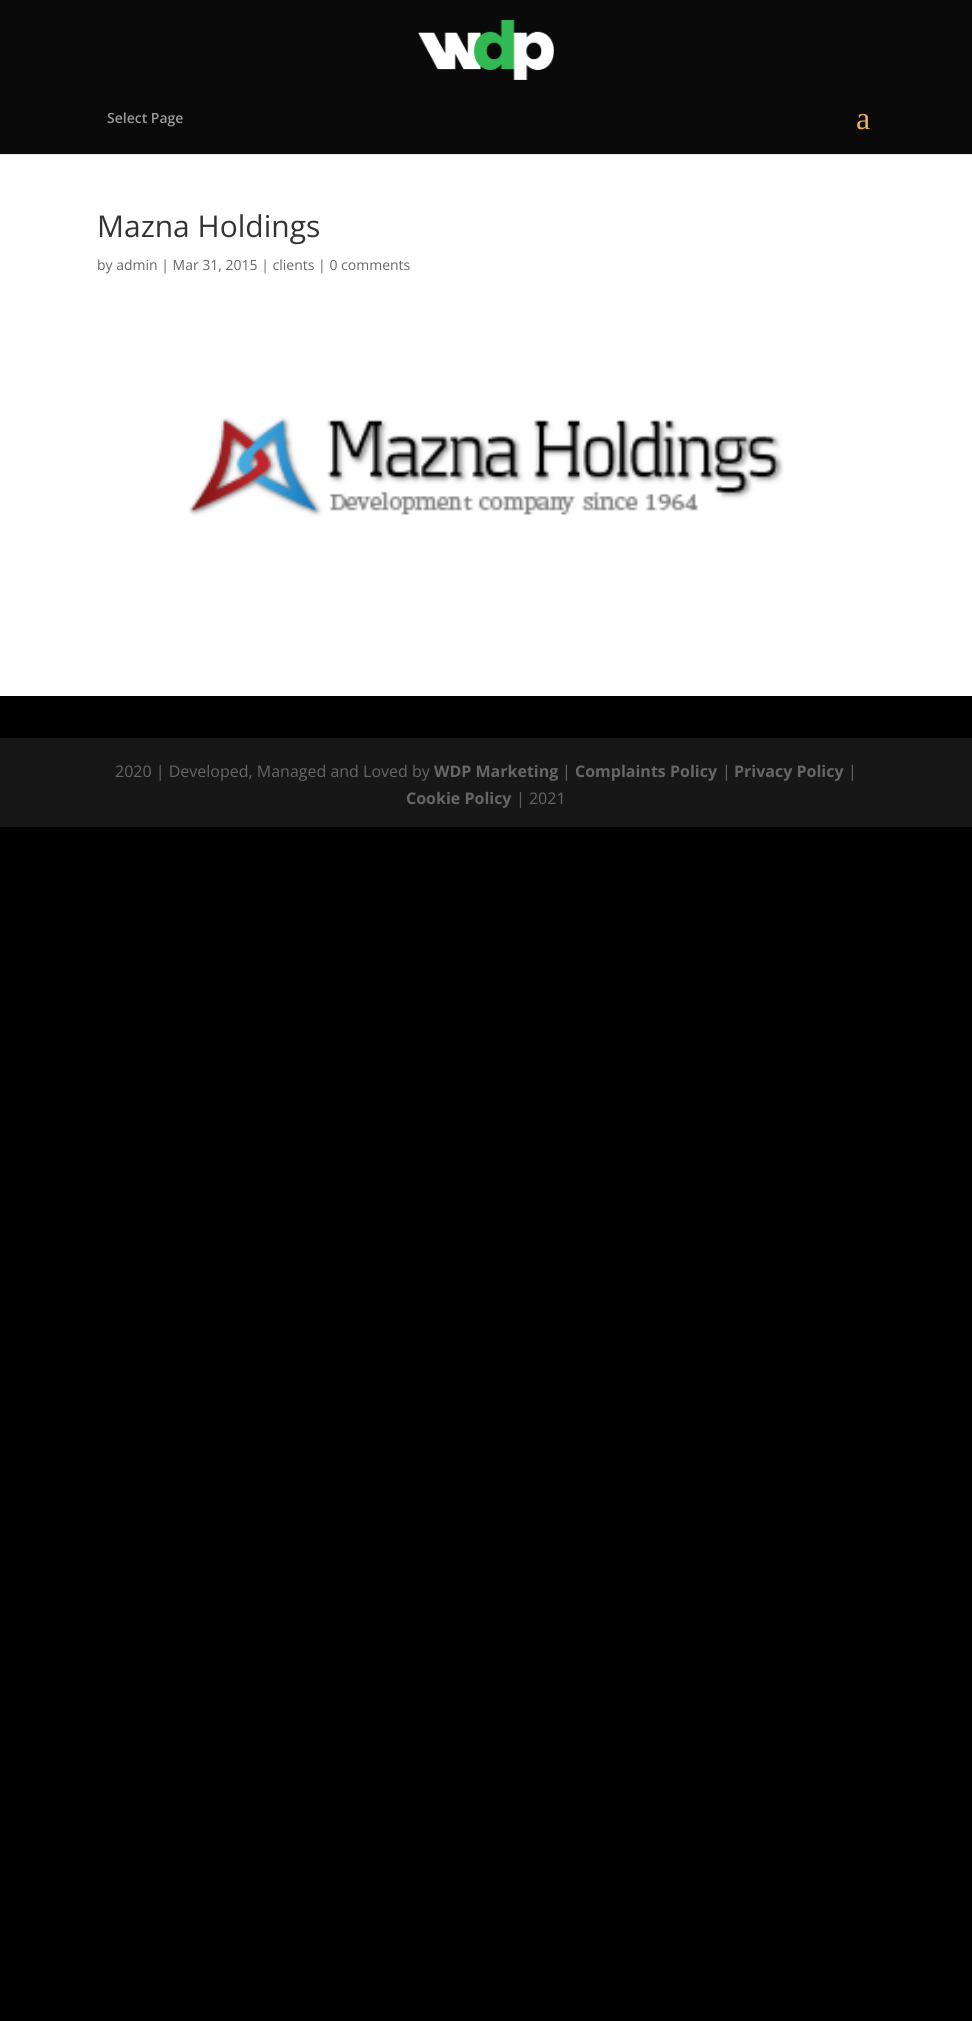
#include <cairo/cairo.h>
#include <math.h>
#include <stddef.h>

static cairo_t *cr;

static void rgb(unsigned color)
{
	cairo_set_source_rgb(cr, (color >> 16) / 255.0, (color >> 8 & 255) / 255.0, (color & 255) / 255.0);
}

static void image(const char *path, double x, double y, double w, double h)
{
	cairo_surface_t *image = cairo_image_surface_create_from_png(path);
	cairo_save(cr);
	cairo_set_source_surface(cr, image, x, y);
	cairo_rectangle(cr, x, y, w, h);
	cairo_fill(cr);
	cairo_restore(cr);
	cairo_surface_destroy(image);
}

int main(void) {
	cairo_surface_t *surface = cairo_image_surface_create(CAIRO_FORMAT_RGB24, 972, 2021);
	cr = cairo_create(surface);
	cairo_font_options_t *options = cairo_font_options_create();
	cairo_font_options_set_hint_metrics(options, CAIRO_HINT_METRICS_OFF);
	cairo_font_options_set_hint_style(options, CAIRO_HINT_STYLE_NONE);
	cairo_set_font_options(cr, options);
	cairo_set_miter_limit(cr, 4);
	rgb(0x000000);
	cairo_paint(cr);
	rgb(0xe6e6e6);
	cairo_rectangle(cr, 0, 154, 972, 1);
	cairo_fill(cr);
	rgb(0x0a0a0a);
	cairo_rectangle(cr, 0, 0, 972, 154);
	cairo_fill(cr);
	image("img/1.png", 418, 20, 136, 60);
	rgb(0xffffff);
	cairo_rectangle(cr, 0, 155, 972, 541);
	cairo_fill(cr);
	image("img/2.png", 188, 417, 596, 100);
	rgb(0x171717);
	cairo_rectangle(cr, 0, 738, 972, 89);
	cairo_fill(cr);
	cairo_select_font_face(cr, "Open Sans SemiBold", CAIRO_FONT_SLANT_NORMAL, CAIRO_FONT_WEIGHT_NORMAL);
	cairo_set_font_size(cr, 14);
	rgb(0x999999);
	cairo_move_to(cr, 107, 123);
	cairo_show_text(cr, "Select Page");
	cairo_select_font_face(cr, "Liberation Serif", CAIRO_FONT_SLANT_NORMAL, CAIRO_FONT_WEIGHT_NORMAL);
	cairo_set_font_size(cr, 32);
	rgb(0xedb059);
	cairo_move_to(cr, 856, 129);
	cairo_show_text(cr, "a");
	cairo_select_font_face(cr, "Open Sans", CAIRO_FONT_SLANT_NORMAL, CAIRO_FONT_WEIGHT_NORMAL);
	cairo_set_font_size(cr, 30);
	rgb(0x333333);
	cairo_move_to(cr, 97, 237);
	cairo_show_text(cr, "Mazna Holdings");
	cairo_set_font_size(cr, 14);
	rgb(0x666666);
	cairo_move_to(cr, 97, 270);
	cairo_show_text(cr, "by admin | Mar 31, 2015 | clients | 0 comments");
	cairo_set_font_size(cr, 16);
	cairo_move_to(cr, 115, 777);
	cairo_show_text(cr, "2020 | Developed, Managed and Loved by");
	cairo_select_font_face(cr, "Open Sans", CAIRO_FONT_SLANT_NORMAL, CAIRO_FONT_WEIGHT_BOLD);
	cairo_move_to(cr, 434, 777);
	cairo_show_text(cr, "WDP Marketing");
	cairo_select_font_face(cr, "Open Sans", CAIRO_FONT_SLANT_NORMAL, CAIRO_FONT_WEIGHT_NORMAL);
	cairo_move_to(cr, 562, 777);
	cairo_show_text(cr, "|");
	cairo_select_font_face(cr, "Open Sans", CAIRO_FONT_SLANT_NORMAL, CAIRO_FONT_WEIGHT_BOLD);
	cairo_move_to(cr, 575, 777);
	cairo_show_text(cr, "Complaints Policy");
	cairo_select_font_face(cr, "Open Sans", CAIRO_FONT_SLANT_NORMAL, CAIRO_FONT_WEIGHT_NORMAL);
	cairo_move_to(cr, 722, 777);
	cairo_show_text(cr, "|");
	cairo_select_font_face(cr, "Open Sans", CAIRO_FONT_SLANT_NORMAL, CAIRO_FONT_WEIGHT_BOLD);
	cairo_move_to(cr, 734, 777);
	cairo_show_text(cr, "Privacy Policy");
	cairo_select_font_face(cr, "Open Sans", CAIRO_FONT_SLANT_NORMAL, CAIRO_FONT_WEIGHT_NORMAL);
	cairo_move_to(cr, 848, 777);
	cairo_show_text(cr, "|");
	cairo_select_font_face(cr, "Open Sans", CAIRO_FONT_SLANT_NORMAL, CAIRO_FONT_WEIGHT_BOLD);
	cairo_move_to(cr, 406, 804);
	cairo_show_text(cr, "Cookie Policy");
	cairo_select_font_face(cr, "Open Sans", CAIRO_FONT_SLANT_NORMAL, CAIRO_FONT_WEIGHT_NORMAL);
	cairo_move_to(cr, 516, 804);
	cairo_show_text(cr, "| 2021");
	cairo_surface_write_to_png(surface, "page.png");
	cairo_font_options_destroy(options);
	cairo_destroy(cr);
	cairo_surface_destroy(surface);
	return 0;
}
